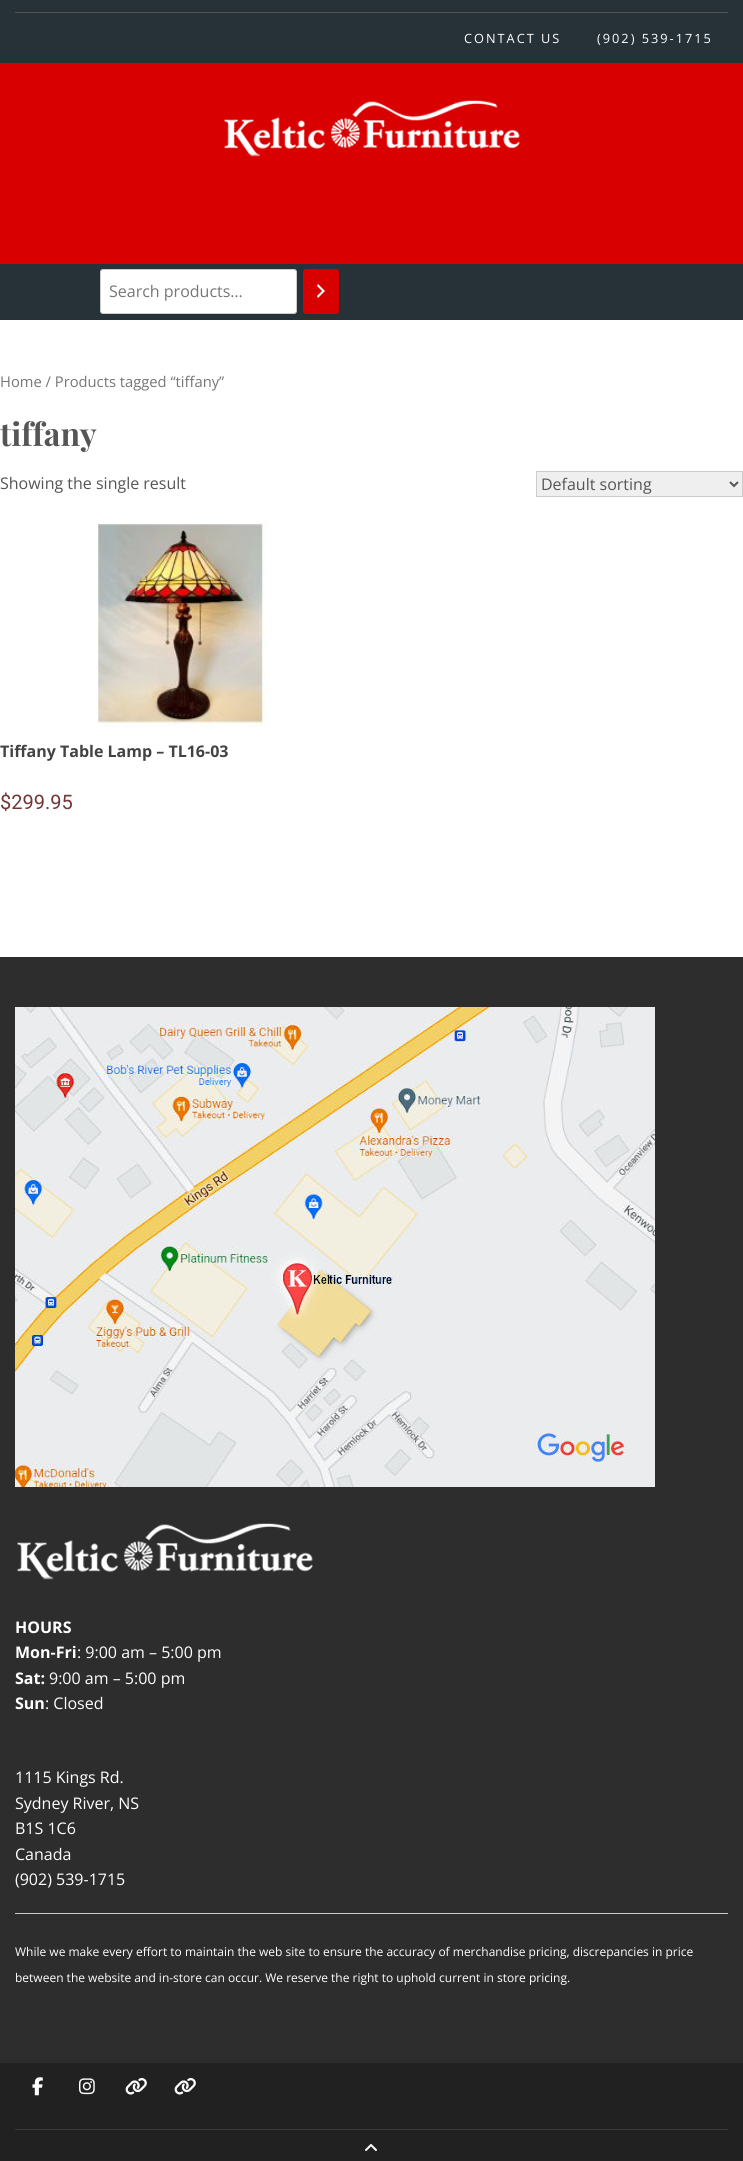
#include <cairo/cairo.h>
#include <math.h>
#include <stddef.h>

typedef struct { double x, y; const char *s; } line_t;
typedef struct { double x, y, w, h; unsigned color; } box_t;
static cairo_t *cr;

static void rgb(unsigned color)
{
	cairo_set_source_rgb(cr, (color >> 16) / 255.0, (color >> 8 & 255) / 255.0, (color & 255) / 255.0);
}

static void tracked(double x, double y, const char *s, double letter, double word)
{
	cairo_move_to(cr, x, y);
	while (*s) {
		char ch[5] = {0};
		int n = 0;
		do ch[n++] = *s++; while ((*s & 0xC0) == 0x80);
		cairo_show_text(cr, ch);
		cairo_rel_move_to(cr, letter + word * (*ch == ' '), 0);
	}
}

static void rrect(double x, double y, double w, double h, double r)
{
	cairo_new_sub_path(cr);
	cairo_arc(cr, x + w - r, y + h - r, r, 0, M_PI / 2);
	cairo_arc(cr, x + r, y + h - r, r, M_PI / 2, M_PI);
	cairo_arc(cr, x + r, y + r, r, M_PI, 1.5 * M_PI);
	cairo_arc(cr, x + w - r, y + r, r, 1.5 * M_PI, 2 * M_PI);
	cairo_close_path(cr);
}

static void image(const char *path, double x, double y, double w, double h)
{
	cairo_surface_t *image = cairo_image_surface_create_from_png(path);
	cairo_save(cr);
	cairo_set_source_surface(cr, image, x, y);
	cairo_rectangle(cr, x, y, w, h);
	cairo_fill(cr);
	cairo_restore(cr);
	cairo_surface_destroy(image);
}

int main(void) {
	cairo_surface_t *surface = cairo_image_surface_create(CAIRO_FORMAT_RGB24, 743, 2161);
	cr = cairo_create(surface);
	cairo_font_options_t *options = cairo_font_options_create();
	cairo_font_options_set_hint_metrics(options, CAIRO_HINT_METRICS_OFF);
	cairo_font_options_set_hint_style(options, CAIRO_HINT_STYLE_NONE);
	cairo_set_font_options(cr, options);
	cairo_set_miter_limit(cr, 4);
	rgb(0xffffff);
	cairo_paint(cr);
	{
		static const box_t items[] = {
			{0, 0, 743, 63, 0x263238},
			{15, 12, 713, 1, 0x545454},
			{0, 63, 743, 201, 0xd80000},
		};
		for (size_t i = 0; i < sizeof items / sizeof *items; i++) {
			rgb(items[i].color);
			cairo_rectangle(cr, items[i].x, items[i].y, items[i].w, items[i].h);
			cairo_fill(cr);
		}
	}
	image("img/1.png", 224, 100, 296, 57);
	rgb(0x263238);
	cairo_rectangle(cr, 0, 264, 743, 56);
	cairo_fill(cr);
	rgb(0xffffff);
	rrect(100.5, 269.5, 196, 44, 2.5);
	cairo_fill_preserve(cr);
	rgb(0xcccccc);
	cairo_set_line_width(cr, 1);
	cairo_stroke(cr);
	rgb(0xd80000);
	rrect(303, 269, 36, 45, 3);
	cairo_fill(cr);
	image("img/2.png", 317, 284, 8, 14);
	rgb(0xefefef);
	cairo_rectangle(cr, 536.5, 471.5, 206, 25);
	cairo_fill_preserve(cr);
	rgb(0xcccccc);
	cairo_stroke(cr);
	cairo_new_path(cr);
	cairo_move_to(cr, 730, 482);
	cairo_line_to(cr, 734, 486);
	cairo_line_to(cr, 738, 482);
	rgb(0x555555);
	cairo_set_line_width(cr, 2);
	cairo_stroke(cr);
	image("img/3.png", 95, 522, 173, 205);
	rgb(0x2d2d2d);
	cairo_rectangle(cr, 0, 957, 743, 1106);
	cairo_fill(cr);
	image("img/4.png", 15, 1007, 640, 480);
	image("img/5.png", 17, 1523, 296, 57);
	rgb(0xcccccc);
	cairo_rectangle(cr, 15, 1913, 713, 1);
	cairo_fill(cr);
	rgb(0x212121);
	cairo_rectangle(cr, 0, 2063, 743, 98);
	cairo_fill(cr);
	image("img/6.png", 32, 2077, 11, 19);
	image("img/7.png", 79, 2078, 16, 17);
	image("img/8.png", 125, 2078, 22, 17);
	image("img/8.png", 174, 2078, 22, 17);
	rgb(0x383838);
	cairo_rectangle(cr, 15, 2129, 713, 1);
	cairo_fill(cr);
	image("img/9.png", 365, 2144, 12, 7);
	cairo_select_font_face(cr, "Open Sans", CAIRO_FONT_SLANT_NORMAL, CAIRO_FONT_WEIGHT_NORMAL);
	cairo_set_font_size(cr, 12.75);
	rgb(0xffffff);
	tracked(464, 43, "CONTACT US", 2, 0);
	tracked(597, 43, "(902) 539-1715", 2, 0);
	cairo_set_font_size(cr, 16);
	rgb(0x767676);
	cairo_move_to(cr, 109, 297);
	cairo_show_text(cr, "Search products…");
	cairo_set_font_size(cr, 14.75);
	cairo_move_to(cr, 0, 387);
	cairo_show_text(cr, "Home / Products tagged “tiffany”");
	cairo_select_font_face(cr, "Playfair Display", CAIRO_FONT_SLANT_NORMAL, CAIRO_FONT_WEIGHT_BOLD);
	cairo_set_font_size(cr, 32);
	rgb(0x555555);
	cairo_move_to(cr, 0, 446);
	cairo_show_text(cr, "tiffany");
	cairo_select_font_face(cr, "Open Sans", CAIRO_FONT_SLANT_NORMAL, CAIRO_FONT_WEIGHT_NORMAL);
	cairo_set_font_size(cr, 16);
	cairo_move_to(cr, 0, 489);
	cairo_show_text(cr, "Showing the single result");
	cairo_move_to(cr, 541, 490);
	cairo_show_text(cr, "Default sorting");
	cairo_select_font_face(cr, "Open Sans", CAIRO_FONT_SLANT_NORMAL, CAIRO_FONT_WEIGHT_BOLD);
	rgb(0x434343);
	cairo_move_to(cr, 0, 757);
	cairo_show_text(cr, "Tiffany Table Lamp – TL16-03");
	cairo_select_font_face(cr, "Roboto", CAIRO_FONT_SLANT_NORMAL, CAIRO_FONT_WEIGHT_NORMAL);
	cairo_set_font_size(cr, 20);
	rgb(0x723737);
	cairo_move_to(cr, 0, 809);
	cairo_show_text(cr, "$299.95");
	cairo_select_font_face(cr, "Open Sans", CAIRO_FONT_SLANT_NORMAL, CAIRO_FONT_WEIGHT_BOLD);
	cairo_set_font_size(cr, 16);
	rgb(0xffffff);
	cairo_move_to(cr, 15, 1633);
	cairo_show_text(cr, "HOURS");
	cairo_move_to(cr, 15, 1658);
	cairo_show_text(cr, "Mon-Fri");
	cairo_select_font_face(cr, "Open Sans", CAIRO_FONT_SLANT_NORMAL, CAIRO_FONT_WEIGHT_NORMAL);
	cairo_move_to(cr, 77, 1658);
	cairo_show_text(cr, ": 9:00 am – 5:00 pm");
	cairo_select_font_face(cr, "Open Sans", CAIRO_FONT_SLANT_NORMAL, CAIRO_FONT_WEIGHT_BOLD);
	cairo_move_to(cr, 15, 1684);
	cairo_show_text(cr, "Sat:");
	cairo_select_font_face(cr, "Open Sans", CAIRO_FONT_SLANT_NORMAL, CAIRO_FONT_WEIGHT_NORMAL);
	cairo_move_to(cr, 49, 1684);
	cairo_show_text(cr, "9:00 am – 5:00 pm");
	cairo_select_font_face(cr, "Open Sans", CAIRO_FONT_SLANT_NORMAL, CAIRO_FONT_WEIGHT_BOLD);
	cairo_move_to(cr, 15, 1709);
	cairo_show_text(cr, "Sun");
	cairo_select_font_face(cr, "Open Sans", CAIRO_FONT_SLANT_NORMAL, CAIRO_FONT_WEIGHT_NORMAL);
	{
		static const line_t items[] = {
			{45, 1709, ": Closed"},
			{15, 1783, "1115 Kings Rd."},
			{15, 1809, "Sydney River, NS"},
			{15, 1834, "B1S 1C6"},
			{15, 1860, "Canada"},
			{15, 1885, "(902) 539-1715"},
		};
		for (size_t i = 0; i < sizeof items / sizeof *items; i++) {
			cairo_move_to(cr, items[i].x, items[i].y);
			cairo_show_text(cr, items[i].s);
		}
	}
	cairo_set_font_size(cr, 12);
	cairo_move_to(cr, 15, 1956);
	cairo_show_text(cr, "While we make every effort to maintain the web site to ensure the accuracy of merchandise pricing, discrepancies in price");
	cairo_move_to(cr, 15, 1982);
	cairo_show_text(cr, "between the website and in-store can occur. We reserve the right to uphold current in store pricing.");
	cairo_surface_write_to_png(surface, "page.png");
	cairo_font_options_destroy(options);
	cairo_destroy(cr);
	cairo_surface_destroy(surface);
	return 0;
}
